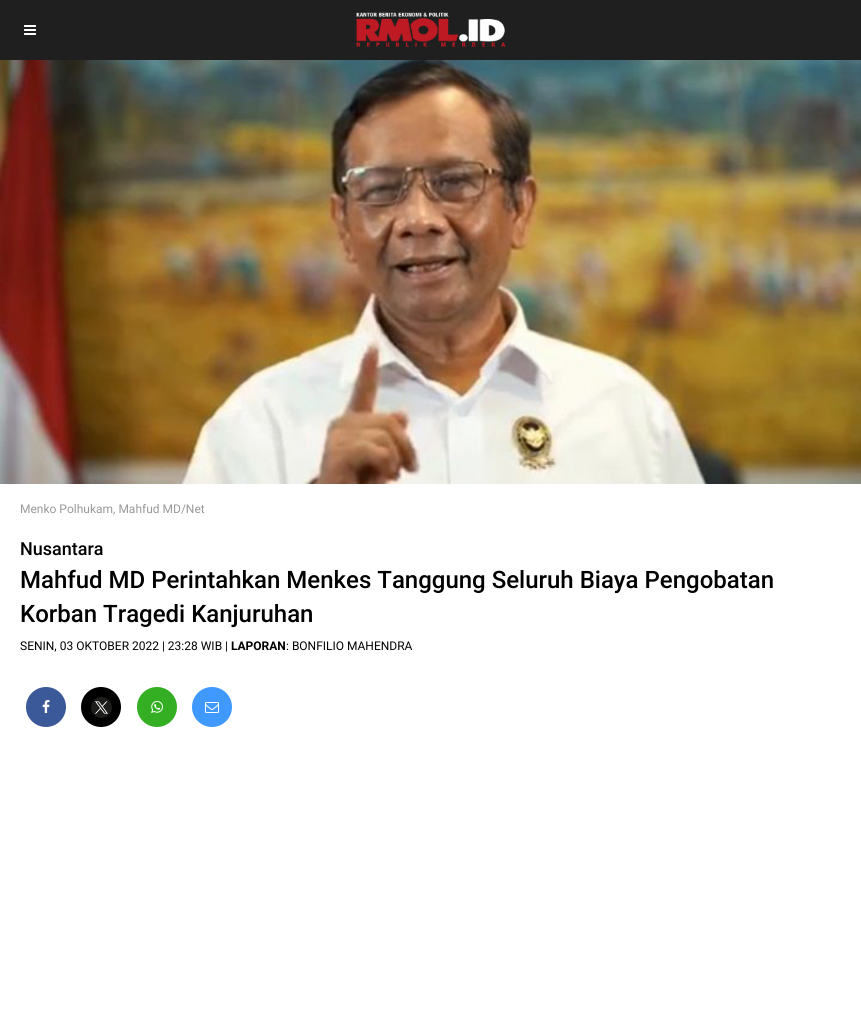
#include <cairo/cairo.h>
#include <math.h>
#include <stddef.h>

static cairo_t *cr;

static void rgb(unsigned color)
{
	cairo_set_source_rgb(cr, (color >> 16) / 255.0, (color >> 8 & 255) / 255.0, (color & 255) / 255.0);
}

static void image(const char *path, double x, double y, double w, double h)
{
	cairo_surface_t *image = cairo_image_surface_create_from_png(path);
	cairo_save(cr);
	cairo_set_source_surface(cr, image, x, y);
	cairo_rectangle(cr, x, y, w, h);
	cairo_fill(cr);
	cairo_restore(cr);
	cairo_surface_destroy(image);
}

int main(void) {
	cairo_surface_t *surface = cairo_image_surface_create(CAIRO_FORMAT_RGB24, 861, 1015);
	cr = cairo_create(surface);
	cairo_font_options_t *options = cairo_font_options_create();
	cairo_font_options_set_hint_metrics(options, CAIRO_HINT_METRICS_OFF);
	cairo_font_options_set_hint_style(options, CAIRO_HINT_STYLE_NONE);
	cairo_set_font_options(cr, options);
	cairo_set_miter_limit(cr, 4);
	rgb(0xffffff);
	cairo_paint(cr);
	rgb(0x1f1f1f);
	cairo_rectangle(cr, 0, 0, 861, 60);
	cairo_fill(cr);
	image("img/1.png", 24, 25, 12, 10);
	image("img/2.png", 356, 12, 150, 35);
	image("img/3.png", 0, 60, 861, 424);
	rgb(0x3b5998);
	cairo_arc(cr, 46, 707, 20, 0, 2 * M_PI);
	cairo_fill(cr);
	image("img/4.png", 42, 700, 8, 13);
	rgb(0x000000);
	cairo_arc(cr, 101, 707, 20, 0, 2 * M_PI);
	cairo_fill(cr);
	image("img/5.png", 91, 697, 21, 21);
	rgb(0x34af23);
	cairo_arc(cr, 157, 707, 20, 0, 2 * M_PI);
	cairo_fill(cr);
	image("img/6.png", 151, 701, 12, 12);
	rgb(0x4099ff);
	cairo_arc(cr, 212, 707, 20, 0, 2 * M_PI);
	cairo_fill(cr);
	image("img/7.png", 205, 702, 14, 11);
	cairo_select_font_face(cr, "Roboto", CAIRO_FONT_SLANT_NORMAL, CAIRO_FONT_WEIGHT_NORMAL);
	cairo_set_font_size(cr, 12);
	rgb(0x999999);
	cairo_move_to(cr, 20, 513);
	cairo_show_text(cr, "Menko Polhukam, Mahfud MD/Net");
	cairo_select_font_face(cr, "Roboto Medium", CAIRO_FONT_SLANT_NORMAL, CAIRO_FONT_WEIGHT_NORMAL);
	cairo_set_font_size(cr, 18);
	rgb(0x000000);
	cairo_move_to(cr, 20, 555);
	cairo_show_text(cr, "Nusantara");
	cairo_set_font_size(cr, 24);
	cairo_move_to(cr, 20, 588);
	cairo_show_text(cr, "Mahfud MD Perintahkan Menkes Tanggung Seluruh Biaya Pengobatan");
	cairo_move_to(cr, 20, 622);
	cairo_show_text(cr, "Korban Tragedi Kanjuruhan");
	cairo_select_font_face(cr, "Roboto", CAIRO_FONT_SLANT_NORMAL, CAIRO_FONT_WEIGHT_NORMAL);
	cairo_set_font_size(cr, 12);
	cairo_move_to(cr, 20, 650);
	cairo_show_text(cr, "SENIN, 03 OKTOBER 2022 | 23:28 WIB |");
	cairo_select_font_face(cr, "Roboto", CAIRO_FONT_SLANT_NORMAL, CAIRO_FONT_WEIGHT_BOLD);
	cairo_move_to(cr, 231, 650);
	cairo_show_text(cr, "LAPORAN");
	cairo_select_font_face(cr, "Roboto", CAIRO_FONT_SLANT_NORMAL, CAIRO_FONT_WEIGHT_NORMAL);
	cairo_move_to(cr, 286, 650);
	cairo_show_text(cr, ": BONFILIO MAHENDRA");
	cairo_surface_write_to_png(surface, "page.png");
	cairo_font_options_destroy(options);
	cairo_destroy(cr);
	cairo_surface_destroy(surface);
	return 0;
}
